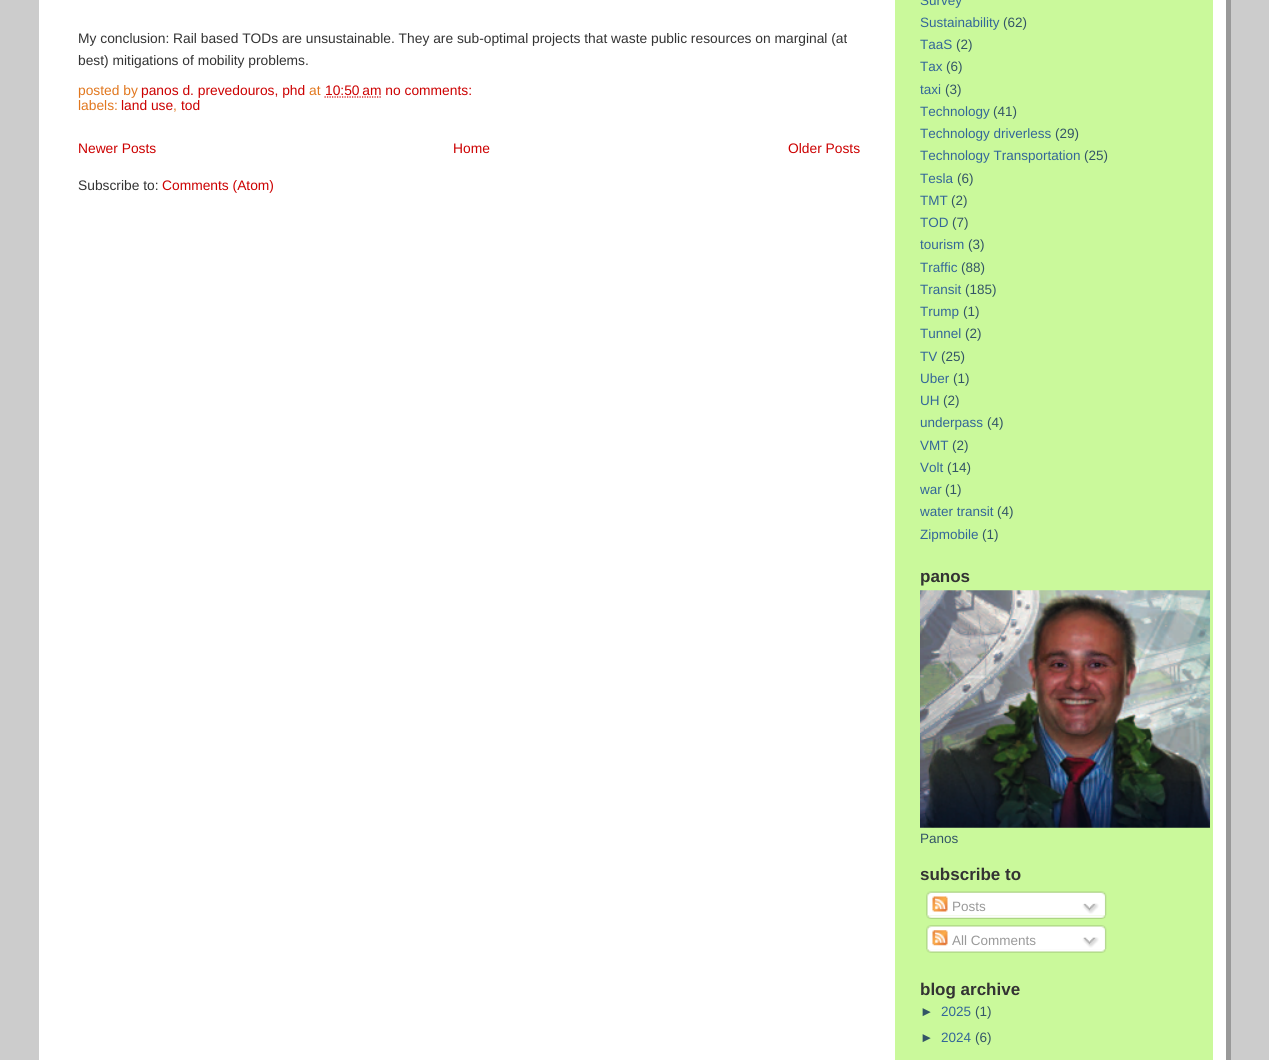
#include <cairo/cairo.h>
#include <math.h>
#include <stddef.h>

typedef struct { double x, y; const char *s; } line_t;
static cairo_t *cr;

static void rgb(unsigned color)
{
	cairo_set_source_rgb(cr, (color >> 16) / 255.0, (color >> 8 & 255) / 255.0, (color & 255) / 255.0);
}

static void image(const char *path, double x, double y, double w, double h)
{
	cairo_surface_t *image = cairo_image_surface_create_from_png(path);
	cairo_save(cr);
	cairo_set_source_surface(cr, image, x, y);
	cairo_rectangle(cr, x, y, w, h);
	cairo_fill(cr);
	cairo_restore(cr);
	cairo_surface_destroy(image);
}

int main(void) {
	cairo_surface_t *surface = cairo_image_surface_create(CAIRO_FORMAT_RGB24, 1269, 1060);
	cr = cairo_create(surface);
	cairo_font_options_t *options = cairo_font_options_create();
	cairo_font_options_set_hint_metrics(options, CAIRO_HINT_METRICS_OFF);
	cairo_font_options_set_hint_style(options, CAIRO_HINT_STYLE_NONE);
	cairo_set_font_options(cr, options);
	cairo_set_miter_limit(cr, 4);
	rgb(0xcccccc);
	cairo_paint(cr);
	rgb(0x999999);
	cairo_rectangle(cr, 1226, 0, 5, 1060);
	cairo_fill(cr);
	rgb(0xffffff);
	cairo_rectangle(cr, 39, 0, 1187, 1060);
	cairo_fill(cr);
	cairo_new_path(cr);
	cairo_move_to(cr, 324.5, 97);
	cairo_line_to(cr, 381, 97);
	rgb(0xcc0000);
	cairo_set_line_width(cr, 1.2);
	cairo_set_dash(cr, (double[]){1.25, 1.25}, 2, 0);
	cairo_stroke(cr);
	rgb(0xcaf99b);
	cairo_rectangle(cr, 895, 0, 318, 1060);
	cairo_fill(cr);
	image("img/1.png", 920, 590, 290, 238);
	image("img/2.png", 926, 891, 181, 25);
	image("img/3.png", 932, 896, 16, 16);
	image("img/4.png", 1082, 903, 17, 11);
	image("img/5.png", 926, 915, 180, 4);
	image("img/6.png", 926, 925, 181, 24);
	image("img/7.png", 932, 930, 16, 16);
	image("img/8.png", 1082, 937, 17, 11);
	image("img/9.png", 926, 949, 180, 4);
	cairo_select_font_face(cr, "Liberation Sans", CAIRO_FONT_SLANT_NORMAL, CAIRO_FONT_WEIGHT_NORMAL);
	cairo_set_font_size(cr, 13.8);
	rgb(0x333333);
	cairo_move_to(cr, 78, 43);
	cairo_show_text(cr, "My conclusion: Rail based TODs are unsustainable. They are sub-optimal projects that waste public resources on marginal (at");
	cairo_move_to(cr, 78, 65);
	cairo_show_text(cr, "best) mitigations of mobility problems.");
	rgb(0xe1771e);
	cairo_move_to(cr, 78, 95);
	cairo_show_text(cr, "posted by");
	rgb(0xcc0000);
	cairo_move_to(cr, 141, 95);
	cairo_show_text(cr, "panos d. prevedouros, phd");
	rgb(0xe1771e);
	cairo_move_to(cr, 309, 95);
	cairo_show_text(cr, "at");
	rgb(0xcc0000);
	cairo_move_to(cr, 325, 95);
	cairo_show_text(cr, "10:50 am no comments:");
	rgb(0xe1771e);
	cairo_move_to(cr, 78, 110);
	cairo_show_text(cr, "labels:");
	rgb(0xcc0000);
	cairo_move_to(cr, 121, 110);
	cairo_show_text(cr, "land use");
	rgb(0xe1771e);
	cairo_move_to(cr, 173, 110);
	cairo_show_text(cr, ",");
	rgb(0xcc0000);
	{
		static const line_t items[] = {
			{181, 110, "tod"},
			{78, 153, "Newer Posts"},
			{453, 153, "Home"},
			{788, 153, "Older Posts"},
		};
		for (size_t i = 0; i < sizeof items / sizeof *items; i++) {
			cairo_move_to(cr, items[i].x, items[i].y);
			cairo_show_text(cr, items[i].s);
		}
	}
	rgb(0x333333);
	cairo_move_to(cr, 78, 190);
	cairo_show_text(cr, "Subscribe to:");
	rgb(0xcc0000);
	cairo_move_to(cr, 162, 190);
	cairo_show_text(cr, "Comments (Atom)");
	cairo_set_font_size(cr, 13.5);
	rgb(0x336699);
	cairo_move_to(cr, 920, 5);
	cairo_show_text(cr, "Survey");
	cairo_move_to(cr, 920, 27);
	cairo_show_text(cr, "Sustainability");
	rgb(0x335566);
	cairo_move_to(cr, 1003, 27);
	cairo_show_text(cr, "(62)");
	rgb(0x336699);
	cairo_move_to(cr, 920, 49);
	cairo_show_text(cr, "TaaS");
	rgb(0x335566);
	cairo_move_to(cr, 956, 49);
	cairo_show_text(cr, "(2)");
	rgb(0x336699);
	cairo_move_to(cr, 920, 71);
	cairo_show_text(cr, "Tax");
	rgb(0x335566);
	cairo_move_to(cr, 946, 71);
	cairo_show_text(cr, "(6)");
	rgb(0x336699);
	cairo_move_to(cr, 920, 94);
	cairo_show_text(cr, "taxi");
	rgb(0x335566);
	cairo_move_to(cr, 945, 94);
	cairo_show_text(cr, "(3)");
	rgb(0x336699);
	cairo_move_to(cr, 920, 116);
	cairo_show_text(cr, "Technology");
	rgb(0x335566);
	cairo_move_to(cr, 993, 116);
	cairo_show_text(cr, "(41)");
	rgb(0x336699);
	cairo_move_to(cr, 920, 138);
	cairo_show_text(cr, "Technology driverless");
	rgb(0x335566);
	cairo_move_to(cr, 1055, 138);
	cairo_show_text(cr, "(29)");
	rgb(0x336699);
	cairo_move_to(cr, 920, 160);
	cairo_show_text(cr, "Technology Transportation");
	rgb(0x335566);
	cairo_move_to(cr, 1084, 160);
	cairo_show_text(cr, "(25)");
	rgb(0x336699);
	cairo_move_to(cr, 920, 183);
	cairo_show_text(cr, "Tesla");
	rgb(0x335566);
	cairo_move_to(cr, 957, 183);
	cairo_show_text(cr, "(6)");
	rgb(0x336699);
	cairo_move_to(cr, 920, 205);
	cairo_show_text(cr, "TMT");
	rgb(0x335566);
	cairo_move_to(cr, 951, 205);
	cairo_show_text(cr, "(2)");
	rgb(0x336699);
	cairo_move_to(cr, 920, 227);
	cairo_show_text(cr, "TOD");
	rgb(0x335566);
	cairo_move_to(cr, 952, 227);
	cairo_show_text(cr, "(7)");
	rgb(0x336699);
	cairo_move_to(cr, 920, 249);
	cairo_show_text(cr, "tourism");
	rgb(0x335566);
	cairo_move_to(cr, 968, 249);
	cairo_show_text(cr, "(3)");
	rgb(0x336699);
	cairo_move_to(cr, 920, 272);
	cairo_show_text(cr, "Traffic");
	rgb(0x335566);
	cairo_move_to(cr, 961, 272);
	cairo_show_text(cr, "(88)");
	rgb(0x336699);
	cairo_move_to(cr, 920, 294);
	cairo_show_text(cr, "Transit");
	rgb(0x335566);
	cairo_move_to(cr, 965, 294);
	cairo_show_text(cr, "(185)");
	rgb(0x336699);
	cairo_move_to(cr, 920, 316);
	cairo_show_text(cr, "Trump");
	rgb(0x335566);
	cairo_move_to(cr, 963, 316);
	cairo_show_text(cr, "(1)");
	rgb(0x336699);
	cairo_move_to(cr, 920, 338);
	cairo_show_text(cr, "Tunnel");
	rgb(0x335566);
	cairo_move_to(cr, 965, 338);
	cairo_show_text(cr, "(2)");
	rgb(0x336699);
	cairo_move_to(cr, 920, 361);
	cairo_show_text(cr, "TV");
	rgb(0x335566);
	cairo_move_to(cr, 941, 361);
	cairo_show_text(cr, "(25)");
	rgb(0x336699);
	cairo_move_to(cr, 920, 383);
	cairo_show_text(cr, "Uber");
	rgb(0x335566);
	cairo_move_to(cr, 953, 383);
	cairo_show_text(cr, "(1)");
	rgb(0x336699);
	cairo_move_to(cr, 920, 405);
	cairo_show_text(cr, "UH");
	rgb(0x335566);
	cairo_move_to(cr, 943, 405);
	cairo_show_text(cr, "(2)");
	rgb(0x336699);
	cairo_move_to(cr, 920, 427);
	cairo_show_text(cr, "underpass");
	rgb(0x335566);
	cairo_move_to(cr, 987, 427);
	cairo_show_text(cr, "(4)");
	rgb(0x336699);
	cairo_move_to(cr, 920, 450);
	cairo_show_text(cr, "VMT");
	rgb(0x335566);
	cairo_move_to(cr, 952, 450);
	cairo_show_text(cr, "(2)");
	rgb(0x336699);
	cairo_move_to(cr, 920, 472);
	cairo_show_text(cr, "Volt");
	rgb(0x335566);
	cairo_move_to(cr, 947, 472);
	cairo_show_text(cr, "(14)");
	rgb(0x336699);
	cairo_move_to(cr, 920, 494);
	cairo_show_text(cr, "war");
	rgb(0x335566);
	cairo_move_to(cr, 945, 494);
	cairo_show_text(cr, "(1)");
	rgb(0x336699);
	cairo_move_to(cr, 920, 516);
	cairo_show_text(cr, "water transit");
	rgb(0x335566);
	cairo_move_to(cr, 997, 516);
	cairo_show_text(cr, "(4)");
	rgb(0x336699);
	cairo_move_to(cr, 920, 539);
	cairo_show_text(cr, "Zipmobile");
	rgb(0x335566);
	cairo_move_to(cr, 982, 539);
	cairo_show_text(cr, "(1)");
	cairo_select_font_face(cr, "Liberation Sans", CAIRO_FONT_SLANT_NORMAL, CAIRO_FONT_WEIGHT_BOLD);
	cairo_set_font_size(cr, 17);
	rgb(0x333333);
	cairo_move_to(cr, 920, 582);
	cairo_show_text(cr, "panos");
	cairo_select_font_face(cr, "Liberation Sans", CAIRO_FONT_SLANT_NORMAL, CAIRO_FONT_WEIGHT_NORMAL);
	cairo_set_font_size(cr, 13.5);
	rgb(0x335566);
	cairo_move_to(cr, 920, 843);
	cairo_show_text(cr, "Panos");
	cairo_select_font_face(cr, "Liberation Sans", CAIRO_FONT_SLANT_NORMAL, CAIRO_FONT_WEIGHT_BOLD);
	cairo_set_font_size(cr, 17);
	rgb(0x333333);
	cairo_move_to(cr, 920, 880);
	cairo_show_text(cr, "subscribe to");
	cairo_select_font_face(cr, "Liberation Sans", CAIRO_FONT_SLANT_NORMAL, CAIRO_FONT_WEIGHT_NORMAL);
	cairo_set_font_size(cr, 13.5);
	rgb(0x999999);
	cairo_move_to(cr, 952, 911);
	cairo_show_text(cr, "Posts");
	cairo_move_to(cr, 952, 945);
	cairo_show_text(cr, "All Comments");
	cairo_select_font_face(cr, "Liberation Sans", CAIRO_FONT_SLANT_NORMAL, CAIRO_FONT_WEIGHT_BOLD);
	cairo_set_font_size(cr, 17);
	rgb(0x333333);
	cairo_move_to(cr, 920, 995);
	cairo_show_text(cr, "blog archive");
	cairo_select_font_face(cr, "Liberation Sans", CAIRO_FONT_SLANT_NORMAL, CAIRO_FONT_WEIGHT_NORMAL);
	cairo_set_font_size(cr, 13.5);
	rgb(0x335566);
	cairo_move_to(cr, 920, 1016);
	cairo_show_text(cr, "►");
	rgb(0x336699);
	cairo_move_to(cr, 941, 1016);
	cairo_show_text(cr, "2025");
	rgb(0x335566);
	cairo_move_to(cr, 975, 1016);
	cairo_show_text(cr, "(1)");
	cairo_move_to(cr, 920, 1042);
	cairo_show_text(cr, "►");
	rgb(0x336699);
	cairo_move_to(cr, 941, 1042);
	cairo_show_text(cr, "2024");
	rgb(0x335566);
	cairo_move_to(cr, 975, 1042);
	cairo_show_text(cr, "(6)");
	cairo_surface_write_to_png(surface, "page.png");
	cairo_font_options_destroy(options);
	cairo_destroy(cr);
	cairo_surface_destroy(surface);
	return 0;
}
